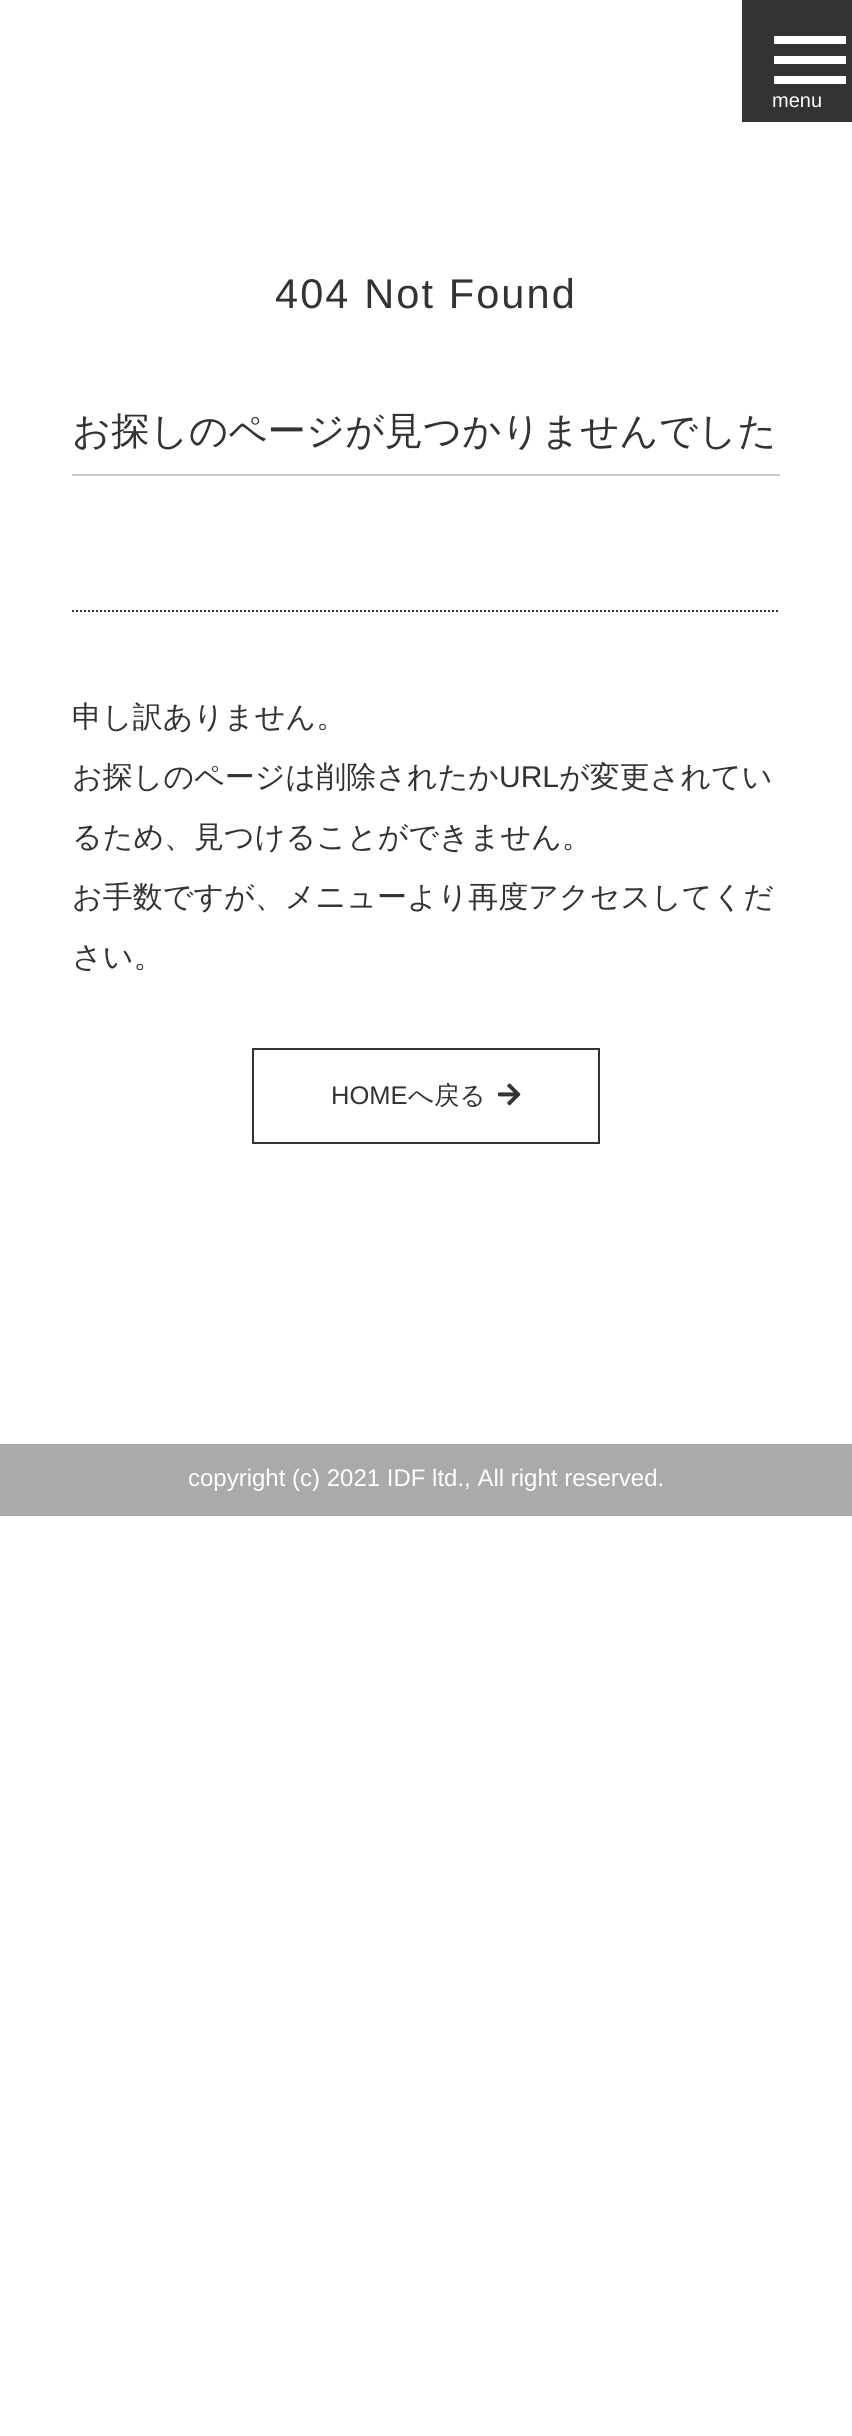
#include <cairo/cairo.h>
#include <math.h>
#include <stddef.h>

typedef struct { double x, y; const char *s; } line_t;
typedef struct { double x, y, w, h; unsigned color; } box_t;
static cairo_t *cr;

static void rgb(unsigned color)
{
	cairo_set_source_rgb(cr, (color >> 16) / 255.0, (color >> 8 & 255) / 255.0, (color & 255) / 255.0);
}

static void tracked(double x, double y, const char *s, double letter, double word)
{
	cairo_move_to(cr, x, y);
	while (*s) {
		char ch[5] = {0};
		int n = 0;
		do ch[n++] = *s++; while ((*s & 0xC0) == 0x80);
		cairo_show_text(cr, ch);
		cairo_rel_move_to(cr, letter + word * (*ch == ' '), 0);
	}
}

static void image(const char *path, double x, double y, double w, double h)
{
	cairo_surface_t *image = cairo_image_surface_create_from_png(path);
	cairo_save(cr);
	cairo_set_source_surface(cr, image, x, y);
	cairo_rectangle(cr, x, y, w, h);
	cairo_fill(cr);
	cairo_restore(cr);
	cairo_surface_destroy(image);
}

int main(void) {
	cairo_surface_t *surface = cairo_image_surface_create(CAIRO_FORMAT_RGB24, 852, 2436);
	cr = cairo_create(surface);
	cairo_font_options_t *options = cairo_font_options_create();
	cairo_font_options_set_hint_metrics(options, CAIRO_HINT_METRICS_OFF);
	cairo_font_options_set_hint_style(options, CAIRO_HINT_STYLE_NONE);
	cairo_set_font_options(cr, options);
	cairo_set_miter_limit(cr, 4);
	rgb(0xffffff);
	cairo_paint(cr);
	{
		static const box_t items[] = {
			{742, 0, 110, 122, 0x333333},
			{774, 36, 72, 48, 0xffffff},
			{774, 44, 72, 12, 0x333333},
			{774, 64, 72, 12, 0x333333},
			{72, 474, 708, 2, 0xcccccc},
		};
		for (size_t i = 0; i < sizeof items / sizeof *items; i++) {
			rgb(items[i].color);
			cairo_rectangle(cr, items[i].x, items[i].y, items[i].w, items[i].h);
			cairo_fill(cr);
		}
	}
	cairo_new_path(cr);
	cairo_move_to(cr, 72, 611);
	cairo_line_to(cr, 780, 611);
	rgb(0x333333);
	cairo_set_dash(cr, (double[]){2, 2}, 2, 0);
	cairo_stroke(cr);
	cairo_rectangle(cr, 253, 1049, 346, 94);
	cairo_set_dash(cr, NULL, 0, 0);
	cairo_stroke(cr);
	image("img/1.png", 498, 1083, 23, 23);
	rgb(0xaaaaaa);
	cairo_rectangle(cr, 0, 1444, 852, 72);
	cairo_fill(cr);
	cairo_select_font_face(cr, "Liberation Sans", CAIRO_FONT_SLANT_NORMAL, CAIRO_FONT_WEIGHT_NORMAL);
	cairo_set_font_size(cr, 20);
	rgb(0xffffff);
	cairo_move_to(cr, 772, 107);
	cairo_show_text(cr, "menu");
	cairo_set_font_size(cr, 41.5);
	rgb(0x333333);
	tracked(275, 308, "404 Not Found", 2.1, 0);
	cairo_select_font_face(cr, "WenQuanYi Zen Hei Medium", CAIRO_FONT_SLANT_NORMAL, CAIRO_FONT_WEIGHT_NORMAL);
	cairo_set_font_size(cr, 38.4);
	cairo_move_to(cr, 72, 444);
	cairo_show_text(cr, "お探しのページが見つかりませんでした");
	cairo_set_font_size(cr, 30);
	cairo_move_to(cr, 72, 727);
	cairo_show_text(cr, "申し訳ありません。");
	cairo_move_to(cr, 72, 787);
	cairo_show_text(cr, "お探しのページは削除されたか");
	cairo_select_font_face(cr, "Liberation Sans", CAIRO_FONT_SLANT_NORMAL, CAIRO_FONT_WEIGHT_NORMAL);
	cairo_move_to(cr, 499, 787);
	cairo_show_text(cr, "URL");
	cairo_select_font_face(cr, "WenQuanYi Zen Hei Medium", CAIRO_FONT_SLANT_NORMAL, CAIRO_FONT_WEIGHT_NORMAL);
	{
		static const line_t items[] = {
			{559, 787, "が変更されてい"},
			{72, 847, "るため、見つけることができません。"},
			{72, 907, "お手数ですが、メニューより再度アクセスしてくだ"},
			{72, 967, "さい。"},
		};
		for (size_t i = 0; i < sizeof items / sizeof *items; i++) {
			cairo_move_to(cr, items[i].x, items[i].y);
			cairo_show_text(cr, items[i].s);
		}
	}
	cairo_select_font_face(cr, "Liberation Sans", CAIRO_FONT_SLANT_NORMAL, CAIRO_FONT_WEIGHT_NORMAL);
	cairo_set_font_size(cr, 25.5);
	cairo_move_to(cr, 331, 1104);
	cairo_show_text(cr, "HOME");
	cairo_select_font_face(cr, "WenQuanYi Zen Hei Medium", CAIRO_FONT_SLANT_NORMAL, CAIRO_FONT_WEIGHT_NORMAL);
	cairo_move_to(cr, 408, 1104);
	cairo_show_text(cr, "へ戻る");
	cairo_select_font_face(cr, "Liberation Sans", CAIRO_FONT_SLANT_NORMAL, CAIRO_FONT_WEIGHT_NORMAL);
	cairo_set_font_size(cr, 24);
	rgb(0xffffff);
	cairo_move_to(cr, 188, 1486);
	cairo_show_text(cr, "copyright (c) 2021 IDF ltd., All right reserved.");
	cairo_surface_write_to_png(surface, "page.png");
	cairo_font_options_destroy(options);
	cairo_destroy(cr);
	cairo_surface_destroy(surface);
	return 0;
}
